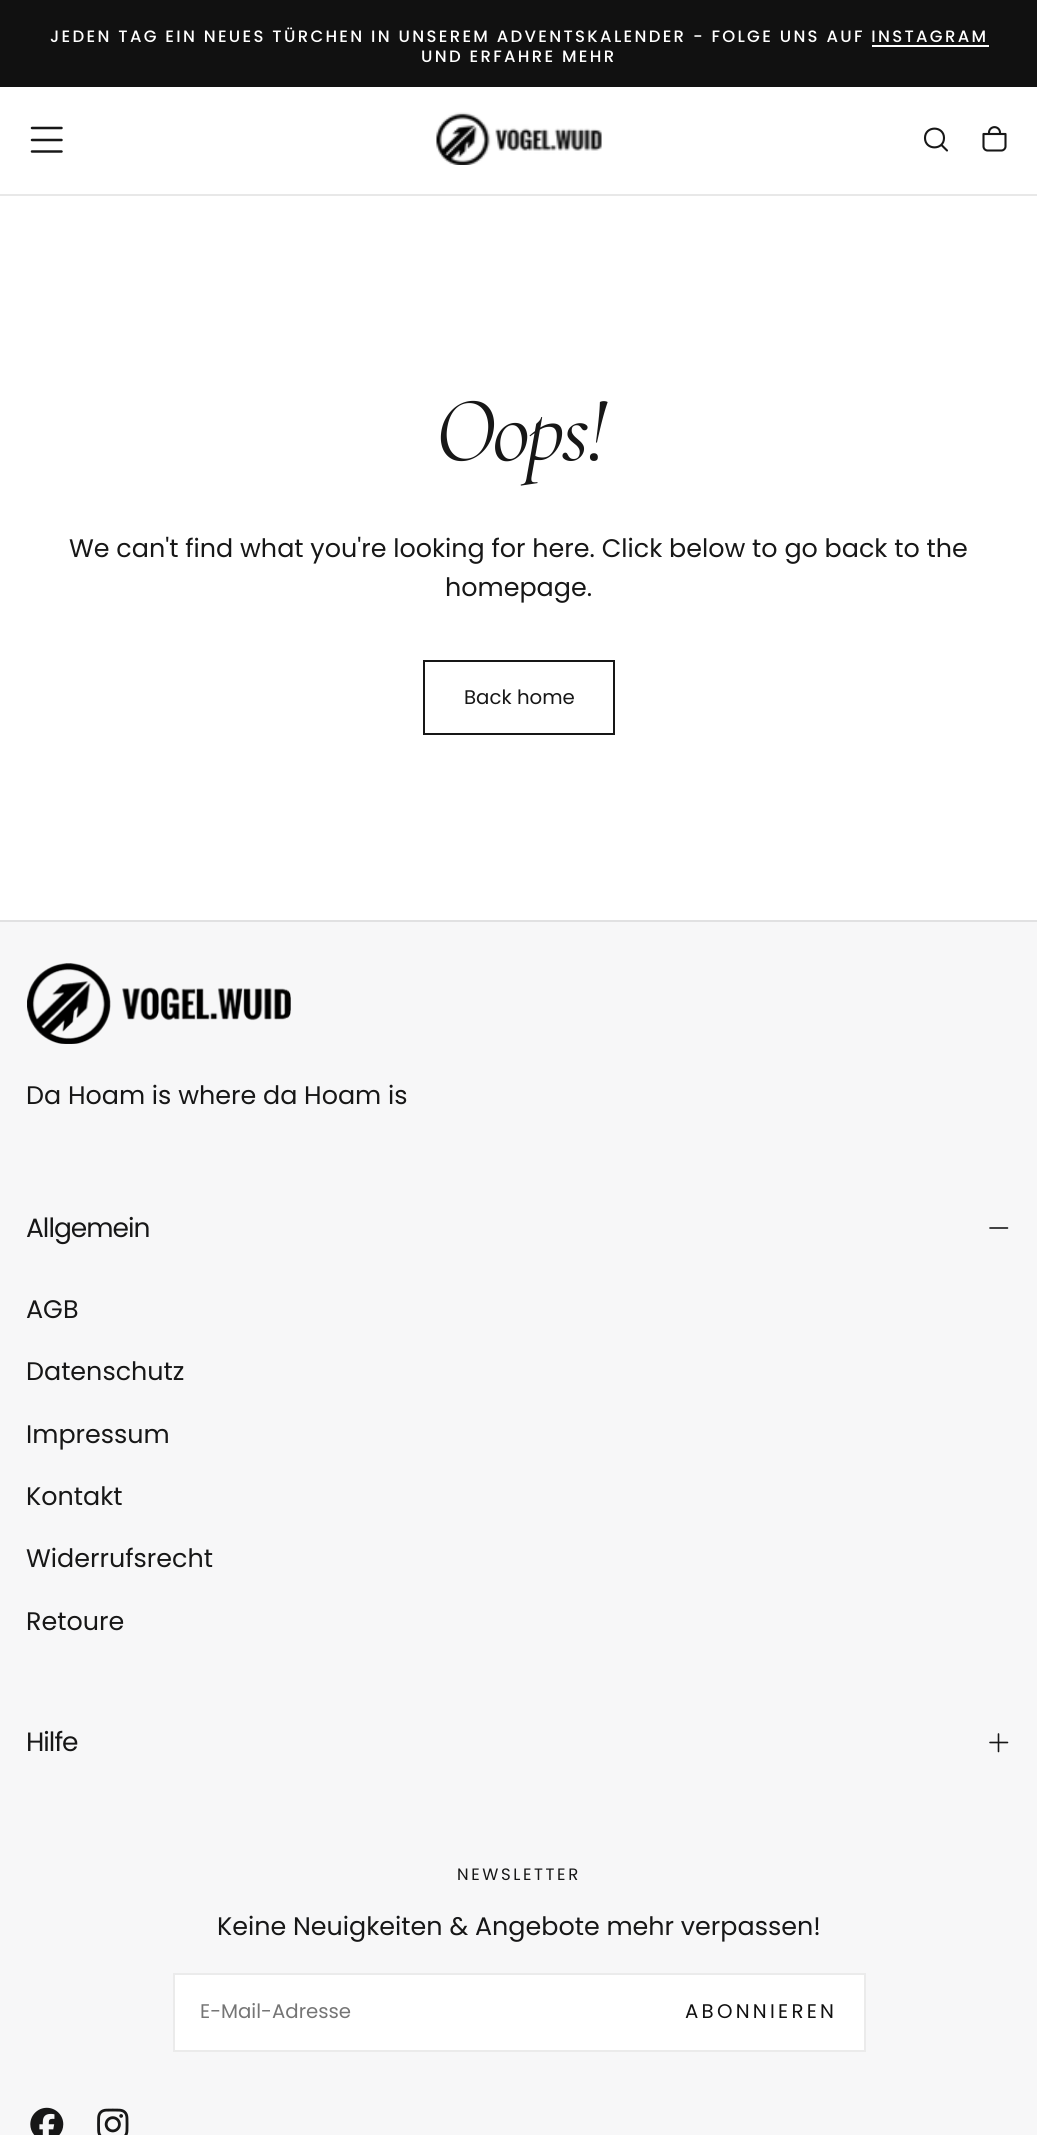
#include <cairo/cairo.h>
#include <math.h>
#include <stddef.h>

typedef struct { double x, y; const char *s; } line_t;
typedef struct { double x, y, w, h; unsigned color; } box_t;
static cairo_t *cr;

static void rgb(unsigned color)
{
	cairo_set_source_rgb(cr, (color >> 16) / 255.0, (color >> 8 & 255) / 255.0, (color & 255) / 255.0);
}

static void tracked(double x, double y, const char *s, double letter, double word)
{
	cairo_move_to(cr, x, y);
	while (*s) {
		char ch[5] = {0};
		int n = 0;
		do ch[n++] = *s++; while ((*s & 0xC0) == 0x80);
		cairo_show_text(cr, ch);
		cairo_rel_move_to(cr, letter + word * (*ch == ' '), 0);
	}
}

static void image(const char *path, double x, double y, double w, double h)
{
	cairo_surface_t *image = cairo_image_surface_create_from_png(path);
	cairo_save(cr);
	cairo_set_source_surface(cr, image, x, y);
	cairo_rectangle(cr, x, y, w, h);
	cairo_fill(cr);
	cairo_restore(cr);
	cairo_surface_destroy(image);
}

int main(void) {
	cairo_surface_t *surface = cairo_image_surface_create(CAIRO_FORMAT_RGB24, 1037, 2135);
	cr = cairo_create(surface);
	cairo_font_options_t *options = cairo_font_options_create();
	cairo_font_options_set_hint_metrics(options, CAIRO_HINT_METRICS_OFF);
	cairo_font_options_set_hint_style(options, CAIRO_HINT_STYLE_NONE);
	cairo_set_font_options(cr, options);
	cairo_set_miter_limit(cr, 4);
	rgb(0xffffff);
	cairo_paint(cr);
	{
		static const box_t items[] = {
			{0, 0, 1037, 87, 0x111111},
			{872, 45, 117, 2, 0xffffff},
			{0, 194, 1037, 2, 0xe8e8e8},
		};
		for (size_t i = 0; i < sizeof items / sizeof *items; i++) {
			rgb(items[i].color);
			cairo_rectangle(cr, items[i].x, items[i].y, items[i].w, items[i].h);
			cairo_fill(cr);
		}
	}
	cairo_new_path(cr);
	cairo_move_to(cr, 32, 140);
	cairo_line_to(cr, 61.5, 140);
	cairo_move_to(cr, 32, 128);
	cairo_line_to(cr, 61.5, 128);
	cairo_move_to(cr, 32, 151.5);
	cairo_line_to(cr, 61.5, 151.5);
	rgb(0x171717);
	cairo_set_line_width(cr, 2.5);
	cairo_set_line_cap(cr, CAIRO_LINE_CAP_ROUND);
	cairo_stroke(cr);
	image("img/1.png", 436, 112, 166, 53);
	cairo_new_path(cr);
	cairo_move_to(cr, 947, 150.5);
	cairo_line_to(cr, 941.5, 145);
	cairo_move_to(cr, 944, 138);
	cairo_curve_to(cr, 944, 150.5, 925, 150.5, 925, 138);
	cairo_curve_to(cr, 925, 125.5, 944, 125.5, 944, 138);
	cairo_close_path(cr);
	cairo_set_line_width(cr, 2.1);
	cairo_stroke(cr);
	image("img/2.png", 982, 126, 25, 26);
	cairo_rectangle(cr, 424, 661, 190, 73);
	cairo_set_line_width(cr, 2);
	cairo_set_line_cap(cr, CAIRO_LINE_CAP_BUTT);
	cairo_stroke(cr);
	rgb(0xf7f7f8);
	cairo_rectangle(cr, 0, 922, 1037, 1213);
	cairo_fill(cr);
	rgb(0xe1e1e2);
	cairo_rectangle(cr, 0, 920, 1037, 2);
	cairo_fill(cr);
	image("img/3.png", 27, 963, 264, 81);
	cairo_new_path(cr);
	cairo_move_to(cr, 990, 1228);
	cairo_line_to(cr, 1007.5, 1228);
	rgb(0x171717);
	cairo_set_line_width(cr, 1.6);
	cairo_set_line_cap(cr, CAIRO_LINE_CAP_ROUND);
	cairo_stroke(cr);
	cairo_new_path(cr);
	cairo_move_to(cr, 998.5, 1734);
	cairo_line_to(cr, 998.5, 1742.5);
	cairo_move_to(cr, 998.5, 1742.5);
	cairo_line_to(cr, 998.5, 1751.5);
	cairo_move_to(cr, 998.5, 1742.5);
	cairo_line_to(cr, 990, 1742.5);
	cairo_move_to(cr, 998.5, 1742.5);
	cairo_line_to(cr, 1007.5, 1742.5);
	cairo_stroke(cr);
	rgb(0xffffff);
	cairo_rectangle(cr, 174, 1974, 691, 77);
	cairo_fill_preserve(cr);
	rgb(0xebebeb);
	cairo_set_line_width(cr, 2);
	cairo_set_line_cap(cr, CAIRO_LINE_CAP_BUTT);
	cairo_stroke(cr);
	image("img/4.png", 30, 2107, 34, 28);
	image("img/5.png", 97, 2108, 32, 27);
	cairo_select_font_face(cr, "Poppins Medium", CAIRO_FONT_SLANT_NORMAL, CAIRO_FONT_WEIGHT_NORMAL);
	cairo_set_font_size(cr, 16.5);
	rgb(0xffffff);
	tracked(50, 42, "JEDEN TAG EIN NEUES TÜRCHEN IN UNSEREM ADVENTSKALENDER - FOLGE UNS AUF INSTAGRAM", 2.3, 0);
	tracked(421, 62, "UND ERFAHRE MEHR", 2.3, 0);
	cairo_select_font_face(cr, "Cormorant", CAIRO_FONT_SLANT_ITALIC, CAIRO_FONT_WEIGHT_NORMAL);
	cairo_set_font_size(cr, 93);
	rgb(0x171717);
	tracked(435, 460, "Oops!", -3, 0);
	cairo_select_font_face(cr, "Poppins", CAIRO_FONT_SLANT_NORMAL, CAIRO_FONT_WEIGHT_NORMAL);
	cairo_set_font_size(cr, 25.4);
	cairo_move_to(cr, 69, 557);
	cairo_show_text(cr, "We can't find what you're looking for here. Click below to go back to the");
	cairo_move_to(cr, 445, 596);
	cairo_show_text(cr, "homepage.");
	cairo_set_font_size(cr, 19.75);
	cairo_move_to(cr, 464, 704);
	cairo_show_text(cr, "Back home");
	cairo_set_font_size(cr, 25.4);
	cairo_move_to(cr, 26, 1104);
	cairo_show_text(cr, "Da Hoam is where da Hoam is");
	cairo_set_font_size(cr, 26.5);
	tracked(26, 1237, "Allgemein", -1, 0);
	cairo_set_font_size(cr, 25.4);
	{
		static const line_t items[] = {
			{26, 1318, "AGB"},
			{26, 1380, "Datenschutz"},
			{26, 1443, "Impressum"},
			{26, 1505, "Kontakt"},
			{26, 1567, "Widerrufsrecht"},
			{26, 1630, "Retoure"},
		};
		for (size_t i = 0; i < sizeof items / sizeof *items; i++) {
			cairo_move_to(cr, items[i].x, items[i].y);
			cairo_show_text(cr, items[i].s);
		}
	}
	cairo_set_font_size(cr, 26.5);
	tracked(26, 1751, "Hilfe", -1, 0);
	cairo_set_font_size(cr, 16.5);
	tracked(457, 1880, "NEWSLETTER", 2.6, 0);
	cairo_set_font_size(cr, 25.4);
	cairo_move_to(cr, 217, 1935);
	cairo_show_text(cr, "Keine Neuigkeiten & Angebote mehr verpassen!");
	cairo_set_font_size(cr, 19.75);
	rgb(0x757575);
	cairo_move_to(cr, 200, 2018);
	cairo_show_text(cr, "E-Mail-Adresse");
	rgb(0x111111);
	tracked(685, 2018, "ABONNIEREN", 3.25, 0);
	cairo_surface_write_to_png(surface, "page.png");
	cairo_font_options_destroy(options);
	cairo_destroy(cr);
	cairo_surface_destroy(surface);
	return 0;
}
